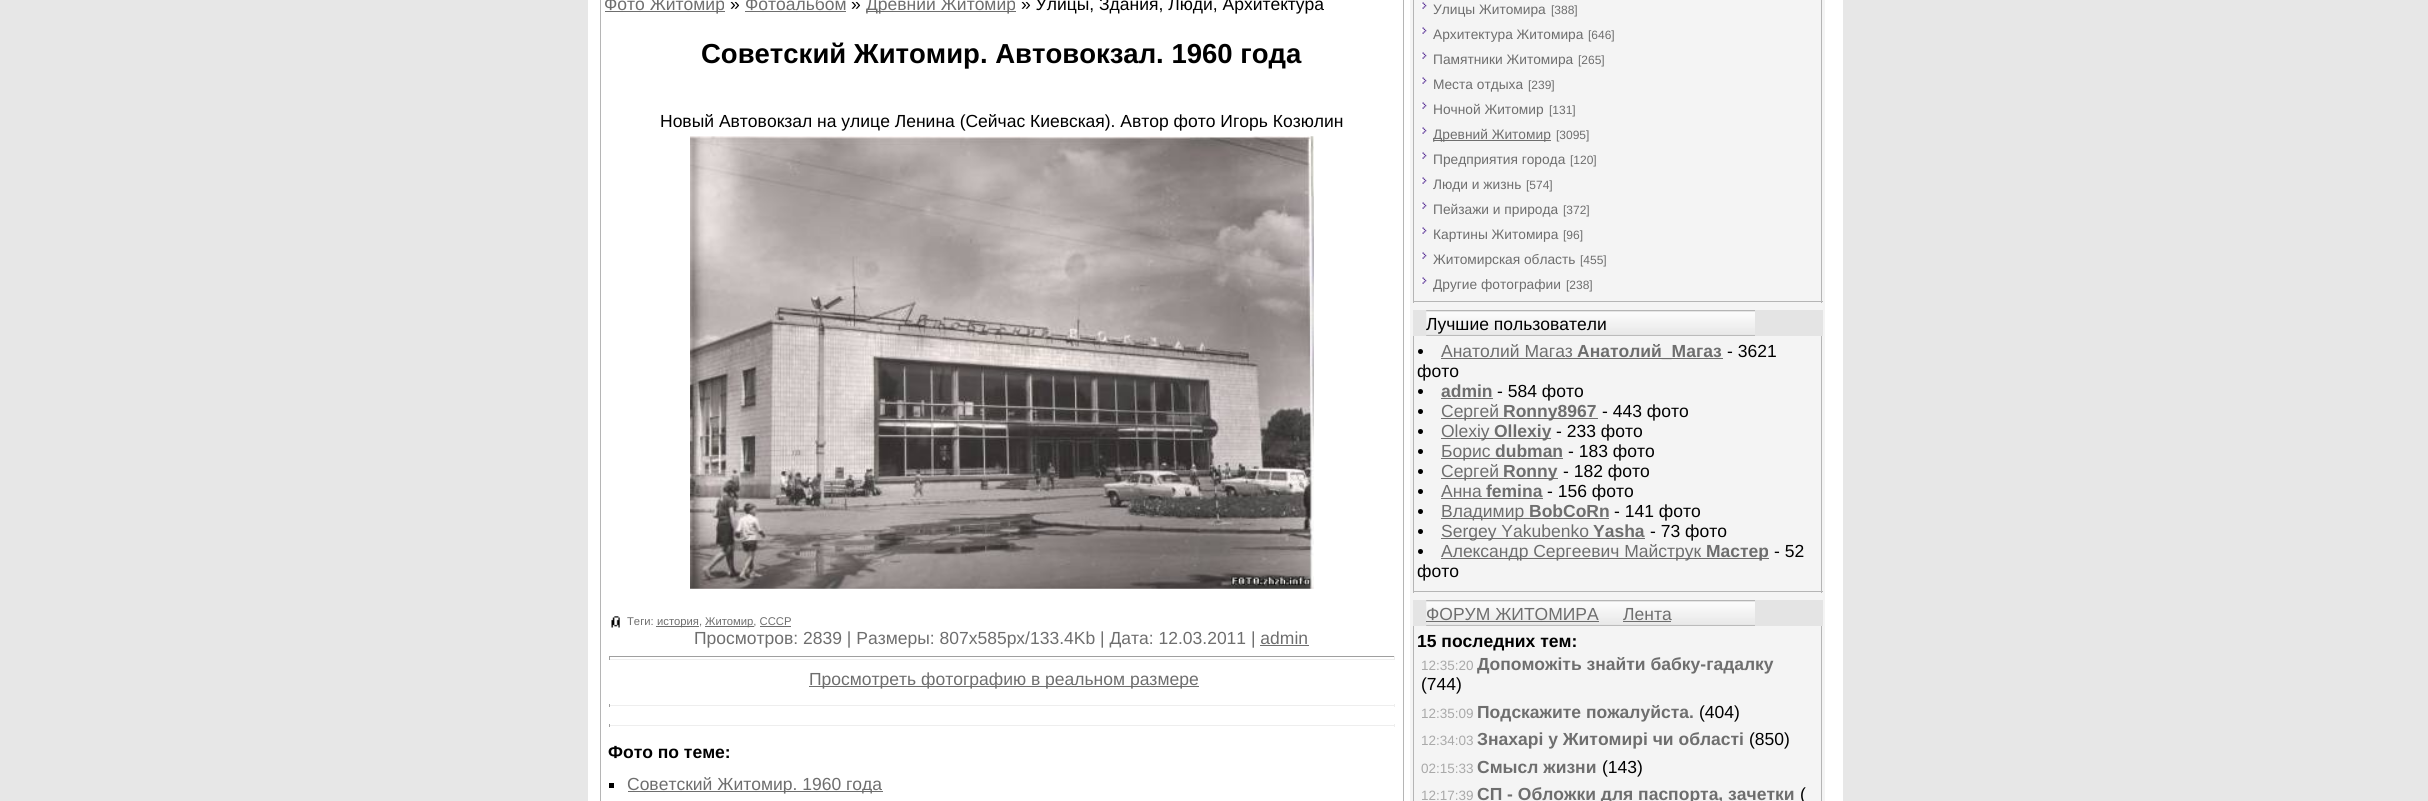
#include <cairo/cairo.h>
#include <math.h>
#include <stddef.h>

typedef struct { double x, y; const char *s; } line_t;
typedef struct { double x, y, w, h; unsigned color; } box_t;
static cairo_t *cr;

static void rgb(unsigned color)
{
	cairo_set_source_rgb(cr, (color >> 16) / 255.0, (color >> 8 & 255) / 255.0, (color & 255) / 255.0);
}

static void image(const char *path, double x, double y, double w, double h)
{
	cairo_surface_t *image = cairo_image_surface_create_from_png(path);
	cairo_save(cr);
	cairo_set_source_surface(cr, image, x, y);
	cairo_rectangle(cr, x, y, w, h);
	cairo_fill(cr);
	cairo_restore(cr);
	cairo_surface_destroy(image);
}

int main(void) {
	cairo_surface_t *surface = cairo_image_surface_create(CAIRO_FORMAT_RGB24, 2428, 801);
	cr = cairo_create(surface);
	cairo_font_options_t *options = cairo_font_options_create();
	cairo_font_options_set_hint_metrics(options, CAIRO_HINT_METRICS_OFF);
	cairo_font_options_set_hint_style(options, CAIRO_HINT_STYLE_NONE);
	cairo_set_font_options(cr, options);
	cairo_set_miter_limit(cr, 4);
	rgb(0xe7e7e7);
	cairo_paint(cr);
	{
		static const box_t items[] = {
			{588, 0, 1255, 801, 0xffffff},
			{1403, 0, 1, 801, 0xb5b5b5},
			{600, 0, 1, 801, 0xb5b5b5},
			{605, 11, 120, 1, 0x6e6e6e},
			{745, 11, 101, 1, 0x6e6e6e},
			{866, 11, 150, 1, 0x6e6e6e},
		};
		for (size_t i = 0; i < sizeof items / sizeof *items; i++) {
			rgb(items[i].color);
			cairo_rectangle(cr, items[i].x, items[i].y, items[i].w, items[i].h);
			cairo_fill(cr);
		}
	}
	image("img/1.png", 690, 136, 624, 453);
	image("img/2.png", 611, 616, 9, 12);
	{
		static const box_t items[] = {
			{656, 626, 43, 1, 0x6e6e6e},
			{705, 626, 49, 1, 0x6e6e6e},
			{760, 626, 31, 1, 0x6e6e6e},
			{1260, 645, 49, 1, 0x6e6e6e},
			{609, 656, 786, 1, 0x9f9f9f},
			{1394, 656, 1, 4, 0xeeeeee},
			{609, 659, 786, 1, 0xeeeeee},
			{609, 656, 1, 4, 0x9f9f9f},
			{809, 686, 390, 1, 0x6e6e6e},
			{1394, 704, 1, 3, 0xeeeeee},
			{609, 705, 786, 1, 0xeeeeee},
			{609, 704, 1, 3, 0x9f9f9f},
			{1394, 724, 1, 3, 0xeeeeee},
			{609, 725, 786, 1, 0xeeeeee},
			{609, 724, 1, 3, 0x9f9f9f},
			{609, 783, 5, 5, 0x000000},
			{628, 791, 255, 1, 0x6e6e6e},
			{1410, 0, 415, 801, 0xf4f4f4},
			{1821, 0, 1, 303, 0xb5b5b5},
			{1413, 301, 410, 1, 0xb5b5b5},
			{1413, 0, 1, 303, 0xb5b5b5},
		};
		for (size_t i = 0; i < sizeof items / sizeof *items; i++) {
			rgb(items[i].color);
			cairo_rectangle(cr, items[i].x, items[i].y, items[i].w, items[i].h);
			cairo_fill(cr);
		}
	}
	image("img/3.png", 1421, 2, 6, 7);
	image("img/3.png", 1421, 27, 6, 7);
	image("img/3.png", 1421, 52, 6, 7);
	image("img/3.png", 1421, 77, 6, 7);
	image("img/3.png", 1421, 102, 6, 7);
	image("img/3.png", 1421, 127, 6, 7);
	rgb(0x6e6e6e);
	cairo_rectangle(cr, 1434, 140, 117, 1);
	cairo_fill(cr);
	image("img/3.png", 1421, 152, 6, 7);
	image("img/3.png", 1421, 177, 6, 7);
	image("img/3.png", 1421, 202, 6, 7);
	image("img/3.png", 1421, 227, 6, 7);
	image("img/3.png", 1421, 252, 6, 7);
	image("img/3.png", 1421, 277, 6, 7);
	rgb(0xe4e4e4);
	cairo_rectangle(cr, 1413, 310, 410, 26);
	cairo_fill(cr);
	image("img/4.png", 1426, 310, 329, 26);
	{
		static const box_t items[] = {
			{1821, 336, 1, 257, 0xb5b5b5},
			{1413, 591, 410, 1, 0xb5b5b5},
			{1413, 336, 1, 257, 0xb5b5b5},
		};
		for (size_t i = 0; i < sizeof items / sizeof *items; i++) {
			rgb(items[i].color);
			cairo_rectangle(cr, items[i].x, items[i].y, items[i].w, items[i].h);
			cairo_fill(cr);
		}
	}
	rgb(0x000000);
	cairo_arc(cr, 1420.5, 351.5, 2.5, 0, 2 * M_PI);
	cairo_fill(cr);
	rgb(0x6e6e6e);
	cairo_rectangle(cr, 1441, 358, 282, 1);
	cairo_fill(cr);
	rgb(0x000000);
	cairo_arc(cr, 1420.5, 391.5, 2.5, 0, 2 * M_PI);
	cairo_fill(cr);
	rgb(0x6e6e6e);
	cairo_rectangle(cr, 1441, 398, 52, 1);
	cairo_fill(cr);
	rgb(0x000000);
	cairo_arc(cr, 1420.5, 411.5, 2.5, 0, 2 * M_PI);
	cairo_fill(cr);
	rgb(0x6e6e6e);
	cairo_rectangle(cr, 1441, 418, 157, 1);
	cairo_fill(cr);
	rgb(0x000000);
	cairo_arc(cr, 1420.5, 431.5, 2.5, 0, 2 * M_PI);
	cairo_fill(cr);
	rgb(0x6e6e6e);
	cairo_rectangle(cr, 1441, 438, 110, 1);
	cairo_fill(cr);
	rgb(0x000000);
	cairo_arc(cr, 1420.5, 451.5, 2.5, 0, 2 * M_PI);
	cairo_fill(cr);
	rgb(0x6e6e6e);
	cairo_rectangle(cr, 1441, 458, 122, 1);
	cairo_fill(cr);
	rgb(0x000000);
	cairo_arc(cr, 1420.5, 471.5, 2.5, 0, 2 * M_PI);
	cairo_fill(cr);
	rgb(0x6e6e6e);
	cairo_rectangle(cr, 1441, 478, 117, 1);
	cairo_fill(cr);
	rgb(0x000000);
	cairo_arc(cr, 1420.5, 491.5, 2.5, 0, 2 * M_PI);
	cairo_fill(cr);
	rgb(0x6e6e6e);
	cairo_rectangle(cr, 1441, 498, 102, 1);
	cairo_fill(cr);
	rgb(0x000000);
	cairo_arc(cr, 1420.5, 511.5, 2.5, 0, 2 * M_PI);
	cairo_fill(cr);
	rgb(0x6e6e6e);
	cairo_rectangle(cr, 1441, 518, 168, 1);
	cairo_fill(cr);
	rgb(0x000000);
	cairo_arc(cr, 1420.5, 531.5, 2.5, 0, 2 * M_PI);
	cairo_fill(cr);
	rgb(0x6e6e6e);
	cairo_rectangle(cr, 1441, 538, 204, 1);
	cairo_fill(cr);
	rgb(0x000000);
	cairo_arc(cr, 1420.5, 551.5, 2.5, 0, 2 * M_PI);
	cairo_fill(cr);
	rgb(0x6e6e6e);
	cairo_rectangle(cr, 1441, 558, 328, 1);
	cairo_fill(cr);
	rgb(0xe4e4e4);
	cairo_rectangle(cr, 1413, 600, 410, 26);
	cairo_fill(cr);
	image("img/4.png", 1426, 600, 329, 26);
	{
		static const box_t items[] = {
			{1426, 621, 173, 1, 0x6e6e6e},
			{1623, 621, 48, 1, 0x6e6e6e},
			{1821, 626, 1, 175, 0xb5b5b5},
			{1413, 626, 1, 175, 0xb5b5b5},
		};
		for (size_t i = 0; i < sizeof items / sizeof *items; i++) {
			rgb(items[i].color);
			cairo_rectangle(cr, items[i].x, items[i].y, items[i].w, items[i].h);
			cairo_fill(cr);
		}
	}
	cairo_select_font_face(cr, "Liberation Sans", CAIRO_FONT_SLANT_NORMAL, CAIRO_FONT_WEIGHT_NORMAL);
	cairo_set_font_size(cr, 17.5);
	rgb(0x6e6e6e);
	cairo_move_to(cr, 604, 10);
	cairo_show_text(cr, "Фото Житомир");
	rgb(0x000000);
	cairo_move_to(cr, 730, 10);
	cairo_show_text(cr, "»");
	rgb(0x6e6e6e);
	cairo_move_to(cr, 745, 10);
	cairo_show_text(cr, "Фотоальбом");
	rgb(0x000000);
	cairo_move_to(cr, 851, 10);
	cairo_show_text(cr, "»");
	rgb(0x6e6e6e);
	cairo_move_to(cr, 866, 10);
	cairo_show_text(cr, "Древний Житомир");
	rgb(0x000000);
	cairo_move_to(cr, 1021, 10);
	cairo_show_text(cr, "» Улицы, Здания, Люди, Архитектура");
	cairo_select_font_face(cr, "Liberation Sans", CAIRO_FONT_SLANT_NORMAL, CAIRO_FONT_WEIGHT_BOLD);
	cairo_set_font_size(cr, 27.5);
	cairo_move_to(cr, 701, 63);
	cairo_show_text(cr, "Советский Житомир. Автовокзал. 1960 года");
	cairo_select_font_face(cr, "Liberation Sans", CAIRO_FONT_SLANT_NORMAL, CAIRO_FONT_WEIGHT_NORMAL);
	cairo_set_font_size(cr, 17.5);
	cairo_move_to(cr, 660, 127);
	cairo_show_text(cr, "Новый Автовокзал на улице Ленина (Сейчас Киевская). Автор фото Игорь Козюлин");
	cairo_set_font_size(cr, 11.25);
	rgb(0x6e6e6e);
	{
		static const line_t items[] = {
			{627, 625, "Теги:"},
			{657, 625, "история,"},
			{705, 625, "Житомир, СССР"},
		};
		for (size_t i = 0; i < sizeof items / sizeof *items; i++) {
			cairo_move_to(cr, items[i].x, items[i].y);
			cairo_show_text(cr, items[i].s);
		}
	}
	cairo_set_font_size(cr, 17.5);
	cairo_move_to(cr, 694, 644);
	cairo_show_text(cr, "Просмотров: 2839 | Размеры: 807x585px/133.4Kb | Дата: 12.03.2011 | admin");
	cairo_move_to(cr, 809, 685);
	cairo_show_text(cr, "Просмотреть фотографию в реальном размере");
	cairo_select_font_face(cr, "Liberation Sans", CAIRO_FONT_SLANT_NORMAL, CAIRO_FONT_WEIGHT_BOLD);
	rgb(0x000000);
	cairo_move_to(cr, 608, 758);
	cairo_show_text(cr, "Фото по теме:");
	cairo_select_font_face(cr, "Liberation Sans", CAIRO_FONT_SLANT_NORMAL, CAIRO_FONT_WEIGHT_NORMAL);
	rgb(0x6e6e6e);
	cairo_move_to(cr, 627, 790);
	cairo_show_text(cr, "Советский Житомир. 1960 года");
	cairo_set_font_size(cr, 13.75);
	cairo_move_to(cr, 1433, 14);
	cairo_show_text(cr, "Улицы Житомира");
	cairo_set_font_size(cr, 12);
	cairo_move_to(cr, 1551, 14);
	cairo_show_text(cr, "[388]");
	cairo_set_font_size(cr, 13.75);
	cairo_move_to(cr, 1433, 39);
	cairo_show_text(cr, "Архитектура Житомира");
	cairo_set_font_size(cr, 12);
	cairo_move_to(cr, 1588, 39);
	cairo_show_text(cr, "[646]");
	cairo_set_font_size(cr, 13.75);
	cairo_move_to(cr, 1433, 64);
	cairo_show_text(cr, "Памятники Житомира");
	cairo_set_font_size(cr, 12);
	cairo_move_to(cr, 1578, 64);
	cairo_show_text(cr, "[265]");
	cairo_set_font_size(cr, 13.75);
	cairo_move_to(cr, 1433, 89);
	cairo_show_text(cr, "Места отдыха");
	cairo_set_font_size(cr, 12);
	cairo_move_to(cr, 1528, 89);
	cairo_show_text(cr, "[239]");
	cairo_set_font_size(cr, 13.75);
	cairo_move_to(cr, 1433, 114);
	cairo_show_text(cr, "Ночной Житомир");
	cairo_set_font_size(cr, 12);
	cairo_move_to(cr, 1549, 114);
	cairo_show_text(cr, "[131]");
	cairo_set_font_size(cr, 13.75);
	cairo_move_to(cr, 1433, 139);
	cairo_show_text(cr, "Древний Житомир");
	cairo_set_font_size(cr, 12);
	cairo_move_to(cr, 1556, 139);
	cairo_show_text(cr, "[3095]");
	cairo_set_font_size(cr, 13.75);
	cairo_move_to(cr, 1433, 164);
	cairo_show_text(cr, "Предприятия города");
	cairo_set_font_size(cr, 12);
	cairo_move_to(cr, 1570, 164);
	cairo_show_text(cr, "[120]");
	cairo_set_font_size(cr, 13.75);
	cairo_move_to(cr, 1433, 189);
	cairo_show_text(cr, "Люди и жизнь");
	cairo_set_font_size(cr, 12);
	cairo_move_to(cr, 1526, 189);
	cairo_show_text(cr, "[574]");
	cairo_set_font_size(cr, 13.75);
	cairo_move_to(cr, 1433, 214);
	cairo_show_text(cr, "Пейзажи и природа");
	cairo_set_font_size(cr, 12);
	cairo_move_to(cr, 1563, 214);
	cairo_show_text(cr, "[372]");
	cairo_set_font_size(cr, 13.75);
	cairo_move_to(cr, 1433, 239);
	cairo_show_text(cr, "Картины Житомира");
	cairo_set_font_size(cr, 12);
	cairo_move_to(cr, 1563, 239);
	cairo_show_text(cr, "[96]");
	cairo_set_font_size(cr, 13.75);
	cairo_move_to(cr, 1433, 264);
	cairo_show_text(cr, "Житомирская область");
	cairo_set_font_size(cr, 12);
	cairo_move_to(cr, 1580, 264);
	cairo_show_text(cr, "[455]");
	cairo_set_font_size(cr, 13.75);
	cairo_move_to(cr, 1433, 289);
	cairo_show_text(cr, "Другие фотографии");
	cairo_set_font_size(cr, 12);
	cairo_move_to(cr, 1566, 289);
	cairo_show_text(cr, "[238]");
	cairo_set_font_size(cr, 17.5);
	rgb(0x000000);
	cairo_move_to(cr, 1426, 330);
	cairo_show_text(cr, "Лучшие пользователи");
	rgb(0x6e6e6e);
	cairo_move_to(cr, 1441, 357);
	cairo_show_text(cr, "Анатолий Магаз");
	cairo_select_font_face(cr, "Liberation Sans", CAIRO_FONT_SLANT_NORMAL, CAIRO_FONT_WEIGHT_BOLD);
	cairo_move_to(cr, 1577, 357);
	cairo_show_text(cr, "Анатолий_Магаз");
	cairo_select_font_face(cr, "Liberation Sans", CAIRO_FONT_SLANT_NORMAL, CAIRO_FONT_WEIGHT_NORMAL);
	rgb(0x000000);
	cairo_move_to(cr, 1727, 357);
	cairo_show_text(cr, "- 3621");
	cairo_move_to(cr, 1417, 377);
	cairo_show_text(cr, "фото");
	cairo_select_font_face(cr, "Liberation Sans", CAIRO_FONT_SLANT_NORMAL, CAIRO_FONT_WEIGHT_BOLD);
	rgb(0x6e6e6e);
	cairo_move_to(cr, 1441, 397);
	cairo_show_text(cr, "admin");
	cairo_select_font_face(cr, "Liberation Sans", CAIRO_FONT_SLANT_NORMAL, CAIRO_FONT_WEIGHT_NORMAL);
	rgb(0x000000);
	cairo_move_to(cr, 1497, 397);
	cairo_show_text(cr, "- 584 фото");
	rgb(0x6e6e6e);
	cairo_move_to(cr, 1441, 417);
	cairo_show_text(cr, "Сергей");
	cairo_select_font_face(cr, "Liberation Sans", CAIRO_FONT_SLANT_NORMAL, CAIRO_FONT_WEIGHT_BOLD);
	cairo_move_to(cr, 1503, 417);
	cairo_show_text(cr, "Ronny8967");
	cairo_select_font_face(cr, "Liberation Sans", CAIRO_FONT_SLANT_NORMAL, CAIRO_FONT_WEIGHT_NORMAL);
	rgb(0x000000);
	cairo_move_to(cr, 1602, 417);
	cairo_show_text(cr, "- 443 фото");
	rgb(0x6e6e6e);
	cairo_move_to(cr, 1441, 437);
	cairo_show_text(cr, "Olexiy");
	cairo_select_font_face(cr, "Liberation Sans", CAIRO_FONT_SLANT_NORMAL, CAIRO_FONT_WEIGHT_BOLD);
	cairo_move_to(cr, 1494, 437);
	cairo_show_text(cr, "Ollexiy");
	cairo_select_font_face(cr, "Liberation Sans", CAIRO_FONT_SLANT_NORMAL, CAIRO_FONT_WEIGHT_NORMAL);
	rgb(0x000000);
	cairo_move_to(cr, 1556, 437);
	cairo_show_text(cr, "- 233 фото");
	rgb(0x6e6e6e);
	cairo_move_to(cr, 1441, 457);
	cairo_show_text(cr, "Борис");
	cairo_select_font_face(cr, "Liberation Sans", CAIRO_FONT_SLANT_NORMAL, CAIRO_FONT_WEIGHT_BOLD);
	cairo_move_to(cr, 1495, 457);
	cairo_show_text(cr, "dubman");
	cairo_select_font_face(cr, "Liberation Sans", CAIRO_FONT_SLANT_NORMAL, CAIRO_FONT_WEIGHT_NORMAL);
	rgb(0x000000);
	cairo_move_to(cr, 1568, 457);
	cairo_show_text(cr, "- 183 фото");
	rgb(0x6e6e6e);
	cairo_move_to(cr, 1441, 477);
	cairo_show_text(cr, "Сергей");
	cairo_select_font_face(cr, "Liberation Sans", CAIRO_FONT_SLANT_NORMAL, CAIRO_FONT_WEIGHT_BOLD);
	cairo_move_to(cr, 1503, 477);
	cairo_show_text(cr, "Ronny");
	cairo_select_font_face(cr, "Liberation Sans", CAIRO_FONT_SLANT_NORMAL, CAIRO_FONT_WEIGHT_NORMAL);
	rgb(0x000000);
	cairo_move_to(cr, 1563, 477);
	cairo_show_text(cr, "- 182 фото");
	rgb(0x6e6e6e);
	cairo_move_to(cr, 1441, 497);
	cairo_show_text(cr, "Анна");
	cairo_select_font_face(cr, "Liberation Sans", CAIRO_FONT_SLANT_NORMAL, CAIRO_FONT_WEIGHT_BOLD);
	cairo_move_to(cr, 1486, 497);
	cairo_show_text(cr, "femina");
	cairo_select_font_face(cr, "Liberation Sans", CAIRO_FONT_SLANT_NORMAL, CAIRO_FONT_WEIGHT_NORMAL);
	rgb(0x000000);
	cairo_move_to(cr, 1547, 497);
	cairo_show_text(cr, "- 156 фото");
	rgb(0x6e6e6e);
	cairo_move_to(cr, 1441, 517);
	cairo_show_text(cr, "Владимир");
	cairo_select_font_face(cr, "Liberation Sans", CAIRO_FONT_SLANT_NORMAL, CAIRO_FONT_WEIGHT_BOLD);
	cairo_move_to(cr, 1529, 517);
	cairo_show_text(cr, "BobCoRn");
	cairo_select_font_face(cr, "Liberation Sans", CAIRO_FONT_SLANT_NORMAL, CAIRO_FONT_WEIGHT_NORMAL);
	rgb(0x000000);
	cairo_move_to(cr, 1614, 517);
	cairo_show_text(cr, "- 141 фото");
	rgb(0x6e6e6e);
	cairo_move_to(cr, 1441, 537);
	cairo_show_text(cr, "Sergey Yakubenko");
	cairo_select_font_face(cr, "Liberation Sans", CAIRO_FONT_SLANT_NORMAL, CAIRO_FONT_WEIGHT_BOLD);
	cairo_move_to(cr, 1593, 537);
	cairo_show_text(cr, "Yasha");
	cairo_select_font_face(cr, "Liberation Sans", CAIRO_FONT_SLANT_NORMAL, CAIRO_FONT_WEIGHT_NORMAL);
	rgb(0x000000);
	cairo_move_to(cr, 1650, 537);
	cairo_show_text(cr, "- 73 фото");
	rgb(0x6e6e6e);
	cairo_move_to(cr, 1441, 557);
	cairo_show_text(cr, "Александр Сергеевич Майструк");
	cairo_select_font_face(cr, "Liberation Sans", CAIRO_FONT_SLANT_NORMAL, CAIRO_FONT_WEIGHT_BOLD);
	cairo_move_to(cr, 1706, 557);
	cairo_show_text(cr, "Мастер");
	cairo_select_font_face(cr, "Liberation Sans", CAIRO_FONT_SLANT_NORMAL, CAIRO_FONT_WEIGHT_NORMAL);
	rgb(0x000000);
	cairo_move_to(cr, 1774, 557);
	cairo_show_text(cr, "- 52");
	cairo_move_to(cr, 1417, 577);
	cairo_show_text(cr, "фото");
	rgb(0x6e6e6e);
	cairo_move_to(cr, 1426, 620);
	cairo_show_text(cr, "ФОРУМ ЖИТОМИРА");
	cairo_move_to(cr, 1623, 620);
	cairo_show_text(cr, "Лента");
	cairo_select_font_face(cr, "Liberation Sans", CAIRO_FONT_SLANT_NORMAL, CAIRO_FONT_WEIGHT_BOLD);
	rgb(0x000000);
	cairo_move_to(cr, 1417, 647);
	cairo_show_text(cr, "15 последних тем:");
	cairo_select_font_face(cr, "Liberation Sans", CAIRO_FONT_SLANT_NORMAL, CAIRO_FONT_WEIGHT_NORMAL);
	cairo_set_font_size(cr, 13.5);
	rgb(0xa9a9a9);
	cairo_move_to(cr, 1421, 670);
	cairo_show_text(cr, "12:35:20");
	cairo_select_font_face(cr, "Liberation Sans", CAIRO_FONT_SLANT_NORMAL, CAIRO_FONT_WEIGHT_BOLD);
	cairo_set_font_size(cr, 17.5);
	rgb(0x6e6e6e);
	cairo_move_to(cr, 1477, 670);
	cairo_show_text(cr, "Допоможіть знайти бабку-гадалку");
	cairo_select_font_face(cr, "Liberation Sans", CAIRO_FONT_SLANT_NORMAL, CAIRO_FONT_WEIGHT_NORMAL);
	rgb(0x000000);
	cairo_move_to(cr, 1421, 690);
	cairo_show_text(cr, "(744)");
	cairo_set_font_size(cr, 13.5);
	rgb(0xa9a9a9);
	cairo_move_to(cr, 1421, 718);
	cairo_show_text(cr, "12:35:09");
	cairo_select_font_face(cr, "Liberation Sans", CAIRO_FONT_SLANT_NORMAL, CAIRO_FONT_WEIGHT_BOLD);
	cairo_set_font_size(cr, 17.5);
	rgb(0x6e6e6e);
	cairo_move_to(cr, 1477, 718);
	cairo_show_text(cr, "Подскажите пожалуйста.");
	cairo_select_font_face(cr, "Liberation Sans", CAIRO_FONT_SLANT_NORMAL, CAIRO_FONT_WEIGHT_NORMAL);
	rgb(0x000000);
	cairo_move_to(cr, 1699, 718);
	cairo_show_text(cr, "(404)");
	cairo_set_font_size(cr, 13.5);
	rgb(0xa9a9a9);
	cairo_move_to(cr, 1421, 745);
	cairo_show_text(cr, "12:34:03");
	cairo_select_font_face(cr, "Liberation Sans", CAIRO_FONT_SLANT_NORMAL, CAIRO_FONT_WEIGHT_BOLD);
	cairo_set_font_size(cr, 17.5);
	rgb(0x6e6e6e);
	cairo_move_to(cr, 1477, 745);
	cairo_show_text(cr, "Знахарі у Житомирі чи області");
	cairo_select_font_face(cr, "Liberation Sans", CAIRO_FONT_SLANT_NORMAL, CAIRO_FONT_WEIGHT_NORMAL);
	rgb(0x000000);
	cairo_move_to(cr, 1749, 745);
	cairo_show_text(cr, "(850)");
	cairo_set_font_size(cr, 13.5);
	rgb(0xa9a9a9);
	cairo_move_to(cr, 1421, 773);
	cairo_show_text(cr, "02:15:33");
	cairo_select_font_face(cr, "Liberation Sans", CAIRO_FONT_SLANT_NORMAL, CAIRO_FONT_WEIGHT_BOLD);
	cairo_set_font_size(cr, 17.5);
	rgb(0x6e6e6e);
	cairo_move_to(cr, 1477, 773);
	cairo_show_text(cr, "Смысл жизни");
	cairo_select_font_face(cr, "Liberation Sans", CAIRO_FONT_SLANT_NORMAL, CAIRO_FONT_WEIGHT_NORMAL);
	rgb(0x000000);
	cairo_move_to(cr, 1602, 773);
	cairo_show_text(cr, "(143)");
	cairo_set_font_size(cr, 13.5);
	rgb(0xa9a9a9);
	cairo_move_to(cr, 1421, 800);
	cairo_show_text(cr, "12:17:39");
	cairo_select_font_face(cr, "Liberation Sans", CAIRO_FONT_SLANT_NORMAL, CAIRO_FONT_WEIGHT_BOLD);
	cairo_set_font_size(cr, 17.5);
	rgb(0x6e6e6e);
	cairo_move_to(cr, 1477, 800);
	cairo_show_text(cr, "CП - Обложки для паспорта, зачетки");
	cairo_select_font_face(cr, "Liberation Sans", CAIRO_FONT_SLANT_NORMAL, CAIRO_FONT_WEIGHT_NORMAL);
	rgb(0x000000);
	cairo_move_to(cr, 1800, 800);
	cairo_show_text(cr, "(");
	cairo_surface_write_to_png(surface, "page.png");
	cairo_font_options_destroy(options);
	cairo_destroy(cr);
	cairo_surface_destroy(surface);
	return 0;
}
